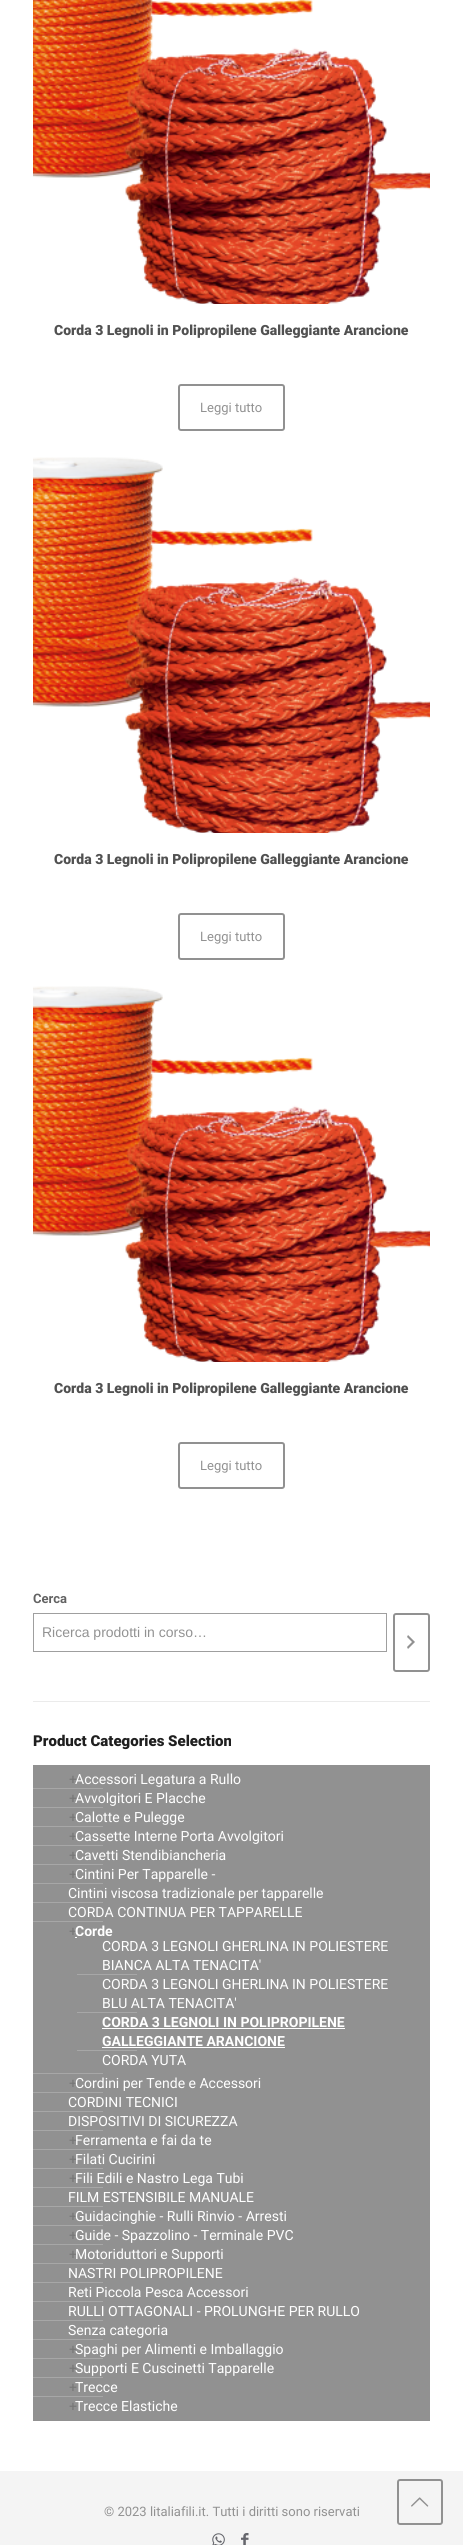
#include <cairo/cairo.h>
#include <math.h>
#include <stddef.h>

typedef struct { double x, y; const char *s; } line_t;
typedef struct { double x, y, w, h; unsigned color; } box_t;
static cairo_t *cr;

static void rgb(unsigned color)
{
	cairo_set_source_rgb(cr, (color >> 16) / 255.0, (color >> 8 & 255) / 255.0, (color & 255) / 255.0);
}

static void rrect(double x, double y, double w, double h, double r)
{
	cairo_new_sub_path(cr);
	cairo_arc(cr, x + w - r, y + h - r, r, 0, M_PI / 2);
	cairo_arc(cr, x + r, y + h - r, r, M_PI / 2, M_PI);
	cairo_arc(cr, x + r, y + r, r, M_PI, 1.5 * M_PI);
	cairo_arc(cr, x + w - r, y + r, r, 1.5 * M_PI, 2 * M_PI);
	cairo_close_path(cr);
}

static void image(const char *path, double x, double y, double w, double h)
{
	cairo_surface_t *image = cairo_image_surface_create_from_png(path);
	cairo_save(cr);
	cairo_set_source_surface(cr, image, x, y);
	cairo_rectangle(cr, x, y, w, h);
	cairo_fill(cr);
	cairo_restore(cr);
	cairo_surface_destroy(image);
}

int main(void) {
	cairo_surface_t *surface = cairo_image_surface_create(CAIRO_FORMAT_RGB24, 463, 2545);
	cr = cairo_create(surface);
	cairo_font_options_t *options = cairo_font_options_create();
	cairo_font_options_set_hint_metrics(options, CAIRO_HINT_METRICS_OFF);
	cairo_font_options_set_hint_style(options, CAIRO_HINT_STYLE_NONE);
	cairo_set_font_options(cr, options);
	cairo_set_miter_limit(cr, 4);
	rgb(0xffffff);
	cairo_paint(cr);
	image("img/1.png", 33, 0, 397, 304);
	rrect(179, 385, 105, 45, 2);
	rgb(0x919191);
	cairo_stroke(cr);
	image("img/2.png", 33, 457, 397, 376);
	rrect(179, 914, 105, 45, 2);
	cairo_stroke(cr);
	image("img/2.png", 33, 986, 397, 376);
	rrect(179, 1443, 105, 45, 2);
	cairo_stroke(cr);
	cairo_rectangle(cr, 33.5, 1613.5, 353, 38);
	rgb(0x9f9f9f);
	cairo_set_line_width(cr, 1);
	cairo_stroke(cr);
	rrect(394, 1614, 35, 57, 2);
	rgb(0x919191);
	cairo_set_line_width(cr, 2);
	cairo_stroke(cr);
	image("img/3.png", 407, 1635, 8, 14);
	{
		static const box_t items[] = {
			{33, 1701, 397, 1, 0xebebeb},
			{33, 1765, 397, 656, 0x919191},
			{33, 1788, 70, 1, 0xa7a7a7},
			{33, 1807, 70, 1, 0xa7a7a7},
			{33, 1826, 70, 1, 0xa7a7a7},
			{33, 1845, 70, 1, 0xa7a7a7},
			{33, 1864, 70, 1, 0xa7a7a7},
			{33, 1883, 70, 1, 0xa7a7a7},
			{33, 1902, 70, 1, 0xa7a7a7},
			{33, 1921, 70, 1, 0xa7a7a7},
			{75, 1937, 2, 1, 0xffffff},
			{77, 1974, 60, 1, 0xa7a7a7},
			{77, 2012, 60, 1, 0xa7a7a7},
			{102, 2028, 243, 1, 0xffffff},
			{102, 2047, 183, 1, 0xffffff},
			{77, 2050, 60, 1, 0xa7a7a7},
			{33, 2073, 70, 1, 0xa7a7a7},
			{33, 2092, 70, 1, 0xa7a7a7},
			{33, 2111, 70, 1, 0xa7a7a7},
			{33, 2130, 70, 1, 0xa7a7a7},
			{33, 2149, 70, 1, 0xa7a7a7},
			{33, 2168, 70, 1, 0xa7a7a7},
			{33, 2187, 70, 1, 0xa7a7a7},
			{33, 2206, 70, 1, 0xa7a7a7},
			{33, 2225, 70, 1, 0xa7a7a7},
			{33, 2244, 70, 1, 0xa7a7a7},
			{33, 2263, 70, 1, 0xa7a7a7},
			{33, 2282, 70, 1, 0xa7a7a7},
			{33, 2301, 70, 1, 0xa7a7a7},
			{33, 2320, 70, 1, 0xa7a7a7},
			{33, 2339, 70, 1, 0xa7a7a7},
			{33, 2358, 70, 1, 0xa7a7a7},
			{33, 2377, 70, 1, 0xa7a7a7},
			{33, 2396, 70, 1, 0xa7a7a7},
			{0, 2471, 463, 74, 0xf4f4f4},
		};
		for (size_t i = 0; i < sizeof items / sizeof *items; i++) {
			rgb(items[i].color);
			cairo_rectangle(cr, items[i].x, items[i].y, items[i].w, items[i].h);
			cairo_fill(cr);
		}
	}
	image("img/4.png", 212, 2533, 13, 12);
	image("img/5.png", 241, 2533, 8, 12);
	rrect(398, 2480, 44, 44, 2);
	rgb(0x919191);
	cairo_stroke(cr);
	image("img/6.png", 411, 2497, 18, 10);
	cairo_select_font_face(cr, "Roboto Black", CAIRO_FONT_SLANT_NORMAL, CAIRO_FONT_WEIGHT_NORMAL);
	cairo_set_font_size(cr, 14);
	rgb(0x515151);
	cairo_move_to(cr, 54, 335);
	cairo_show_text(cr, "Corda 3 Legnoli in Polipropilene Galleggiante Arancione");
	cairo_select_font_face(cr, "Roboto", CAIRO_FONT_SLANT_NORMAL, CAIRO_FONT_WEIGHT_NORMAL);
	cairo_set_font_size(cr, 13);
	rgb(0x929292);
	cairo_move_to(cr, 200, 412);
	cairo_show_text(cr, "Leggi tutto");
	cairo_select_font_face(cr, "Roboto Black", CAIRO_FONT_SLANT_NORMAL, CAIRO_FONT_WEIGHT_NORMAL);
	cairo_set_font_size(cr, 14);
	rgb(0x515151);
	cairo_move_to(cr, 54, 864);
	cairo_show_text(cr, "Corda 3 Legnoli in Polipropilene Galleggiante Arancione");
	cairo_select_font_face(cr, "Roboto", CAIRO_FONT_SLANT_NORMAL, CAIRO_FONT_WEIGHT_NORMAL);
	cairo_set_font_size(cr, 13);
	rgb(0x929292);
	cairo_move_to(cr, 200, 941);
	cairo_show_text(cr, "Leggi tutto");
	cairo_select_font_face(cr, "Roboto Black", CAIRO_FONT_SLANT_NORMAL, CAIRO_FONT_WEIGHT_NORMAL);
	cairo_set_font_size(cr, 14);
	rgb(0x515151);
	cairo_move_to(cr, 54, 1393);
	cairo_show_text(cr, "Corda 3 Legnoli in Polipropilene Galleggiante Arancione");
	cairo_select_font_face(cr, "Roboto", CAIRO_FONT_SLANT_NORMAL, CAIRO_FONT_WEIGHT_NORMAL);
	cairo_set_font_size(cr, 13);
	rgb(0x929292);
	cairo_move_to(cr, 200, 1470);
	cairo_show_text(cr, "Leggi tutto");
	cairo_select_font_face(cr, "Roboto", CAIRO_FONT_SLANT_NORMAL, CAIRO_FONT_WEIGHT_BOLD);
	rgb(0x626262);
	cairo_move_to(cr, 33, 1603);
	cairo_show_text(cr, "Cerca");
	cairo_select_font_face(cr, "Liberation Sans", CAIRO_FONT_SLANT_NORMAL, CAIRO_FONT_WEIGHT_NORMAL);
	cairo_set_font_size(cr, 14);
	rgb(0x929292);
	cairo_move_to(cr, 42, 1637);
	cairo_show_text(cr, "Ricerca prodotti in corso…");
	cairo_select_font_face(cr, "Roboto Black", CAIRO_FONT_SLANT_NORMAL, CAIRO_FONT_WEIGHT_NORMAL);
	cairo_set_font_size(cr, 15);
	rgb(0x1f1f1f);
	cairo_move_to(cr, 33, 1746);
	cairo_show_text(cr, "Product Categories Selection");
	cairo_select_font_face(cr, "Roboto", CAIRO_FONT_SLANT_NORMAL, CAIRO_FONT_WEIGHT_NORMAL);
	cairo_set_font_size(cr, 14);
	rgb(0x777777);
	cairo_move_to(cr, 69, 1784);
	cairo_show_text(cr, "+");
	rgb(0xffffff);
	cairo_move_to(cr, 75, 1784);
	cairo_show_text(cr, "Accessori Legatura a Rullo");
	rgb(0x777777);
	cairo_move_to(cr, 69, 1803);
	cairo_show_text(cr, "+");
	rgb(0xffffff);
	cairo_move_to(cr, 75, 1803);
	cairo_show_text(cr, "Avvolgitori E Placche");
	rgb(0x777777);
	cairo_move_to(cr, 69, 1822);
	cairo_show_text(cr, "+");
	rgb(0xffffff);
	cairo_move_to(cr, 75, 1822);
	cairo_show_text(cr, "Calotte e Pulegge");
	rgb(0x777777);
	cairo_move_to(cr, 69, 1841);
	cairo_show_text(cr, "+");
	rgb(0xffffff);
	cairo_move_to(cr, 75, 1841);
	cairo_show_text(cr, "Cassette Interne Porta Avvolgitori");
	rgb(0x777777);
	cairo_move_to(cr, 69, 1860);
	cairo_show_text(cr, "+");
	rgb(0xffffff);
	cairo_move_to(cr, 75, 1860);
	cairo_show_text(cr, "Cavetti Stendibiancheria");
	rgb(0x777777);
	cairo_move_to(cr, 69, 1879);
	cairo_show_text(cr, "+");
	rgb(0xffffff);
	{
		static const line_t items[] = {
			{75, 1879, "Cintini Per Tapparelle -"},
			{68, 1898, "Cintini viscosa tradizionale per tapparelle"},
			{68, 1917, "CORDA CONTINUA PER TAPPARELLE"},
		};
		for (size_t i = 0; i < sizeof items / sizeof *items; i++) {
			cairo_move_to(cr, items[i].x, items[i].y);
			cairo_show_text(cr, items[i].s);
		}
	}
	rgb(0x777777);
	cairo_move_to(cr, 69, 1936);
	cairo_show_text(cr, "+");
	cairo_select_font_face(cr, "Roboto", CAIRO_FONT_SLANT_NORMAL, CAIRO_FONT_WEIGHT_BOLD);
	rgb(0xffffff);
	cairo_move_to(cr, 75, 1936);
	cairo_show_text(cr, "Corde");
	rgb(0x919191);
	cairo_rectangle(cr, 79, 1936, 31, 1);
	cairo_fill(cr);
	cairo_select_font_face(cr, "Roboto", CAIRO_FONT_SLANT_NORMAL, CAIRO_FONT_WEIGHT_NORMAL);
	rgb(0xffffff);
	{
		static const line_t items[] = {
			{102, 1951, "CORDA 3 LEGNOLI GHERLINA IN POLIESTERE"},
			{102, 1970, "BIANCA ALTA TENACITA'"},
			{102, 1989, "CORDA 3 LEGNOLI GHERLINA IN POLIESTERE"},
			{102, 2008, "BLU ALTA TENACITA'"},
		};
		for (size_t i = 0; i < sizeof items / sizeof *items; i++) {
			cairo_move_to(cr, items[i].x, items[i].y);
			cairo_show_text(cr, items[i].s);
		}
	}
	cairo_select_font_face(cr, "Roboto", CAIRO_FONT_SLANT_NORMAL, CAIRO_FONT_WEIGHT_BOLD);
	cairo_move_to(cr, 102, 2027);
	cairo_show_text(cr, "CORDA 3 LEGNOLI IN POLIPROPILENE");
	cairo_move_to(cr, 102, 2046);
	cairo_show_text(cr, "GALLEGGIANTE ARANCIONE");
	cairo_select_font_face(cr, "Roboto", CAIRO_FONT_SLANT_NORMAL, CAIRO_FONT_WEIGHT_NORMAL);
	cairo_move_to(cr, 102, 2065);
	cairo_show_text(cr, "CORDA YUTA");
	rgb(0x777777);
	cairo_move_to(cr, 69, 2088);
	cairo_show_text(cr, "+");
	rgb(0xffffff);
	{
		static const line_t items[] = {
			{75, 2088, "Cordini per Tende e Accessori"},
			{68, 2107, "CORDINI TECNICI"},
			{68, 2126, "DISPOSITIVI DI SICUREZZA"},
		};
		for (size_t i = 0; i < sizeof items / sizeof *items; i++) {
			cairo_move_to(cr, items[i].x, items[i].y);
			cairo_show_text(cr, items[i].s);
		}
	}
	rgb(0x777777);
	cairo_move_to(cr, 69, 2145);
	cairo_show_text(cr, "+");
	rgb(0xffffff);
	cairo_move_to(cr, 75, 2145);
	cairo_show_text(cr, "Ferramenta e fai da te");
	rgb(0x777777);
	cairo_move_to(cr, 69, 2164);
	cairo_show_text(cr, "+");
	rgb(0xffffff);
	cairo_move_to(cr, 75, 2164);
	cairo_show_text(cr, "Filati Cucirini");
	rgb(0x777777);
	cairo_move_to(cr, 69, 2183);
	cairo_show_text(cr, "+");
	rgb(0xffffff);
	cairo_move_to(cr, 75, 2183);
	cairo_show_text(cr, "Fili Edili e Nastro Lega Tubi");
	cairo_move_to(cr, 68, 2202);
	cairo_show_text(cr, "FILM ESTENSIBILE MANUALE");
	rgb(0x777777);
	cairo_move_to(cr, 69, 2221);
	cairo_show_text(cr, "+");
	rgb(0xffffff);
	cairo_move_to(cr, 75, 2221);
	cairo_show_text(cr, "Guidacinghie - Rulli Rinvio - Arresti");
	rgb(0x777777);
	cairo_move_to(cr, 69, 2240);
	cairo_show_text(cr, "+");
	rgb(0xffffff);
	cairo_move_to(cr, 75, 2240);
	cairo_show_text(cr, "Guide - Spazzolino - Terminale PVC");
	rgb(0x777777);
	cairo_move_to(cr, 69, 2259);
	cairo_show_text(cr, "+");
	rgb(0xffffff);
	{
		static const line_t items[] = {
			{75, 2259, "Motoriduttori e Supporti"},
			{68, 2278, "NASTRI POLIPROPILENE"},
			{68, 2297, "Reti Piccola Pesca Accessori"},
			{68, 2316, "RULLI OTTAGONALI - PROLUNGHE PER RULLO"},
			{68, 2335, "Senza categoria"},
		};
		for (size_t i = 0; i < sizeof items / sizeof *items; i++) {
			cairo_move_to(cr, items[i].x, items[i].y);
			cairo_show_text(cr, items[i].s);
		}
	}
	rgb(0x777777);
	cairo_move_to(cr, 69, 2354);
	cairo_show_text(cr, "+");
	rgb(0xffffff);
	cairo_move_to(cr, 75, 2354);
	cairo_show_text(cr, "Spaghi per Alimenti e Imballaggio");
	rgb(0x777777);
	cairo_move_to(cr, 69, 2373);
	cairo_show_text(cr, "+");
	rgb(0xffffff);
	cairo_move_to(cr, 75, 2373);
	cairo_show_text(cr, "Supporti E Cuscinetti Tapparelle");
	rgb(0x777777);
	cairo_move_to(cr, 69, 2392);
	cairo_show_text(cr, "+");
	rgb(0xffffff);
	cairo_move_to(cr, 75, 2392);
	cairo_show_text(cr, "Trecce");
	rgb(0x777777);
	cairo_move_to(cr, 69, 2411);
	cairo_show_text(cr, "+");
	rgb(0xffffff);
	cairo_move_to(cr, 75, 2411);
	cairo_show_text(cr, "Trecce Elastiche");
	cairo_set_font_size(cr, 13);
	rgb(0x929292);
	cairo_move_to(cr, 104, 2516);
	cairo_show_text(cr, "© 2023 litaliafili.it. Tutti i diritti sono riservati");
	cairo_surface_write_to_png(surface, "page.png");
	cairo_font_options_destroy(options);
	cairo_destroy(cr);
	cairo_surface_destroy(surface);
	return 0;
}
